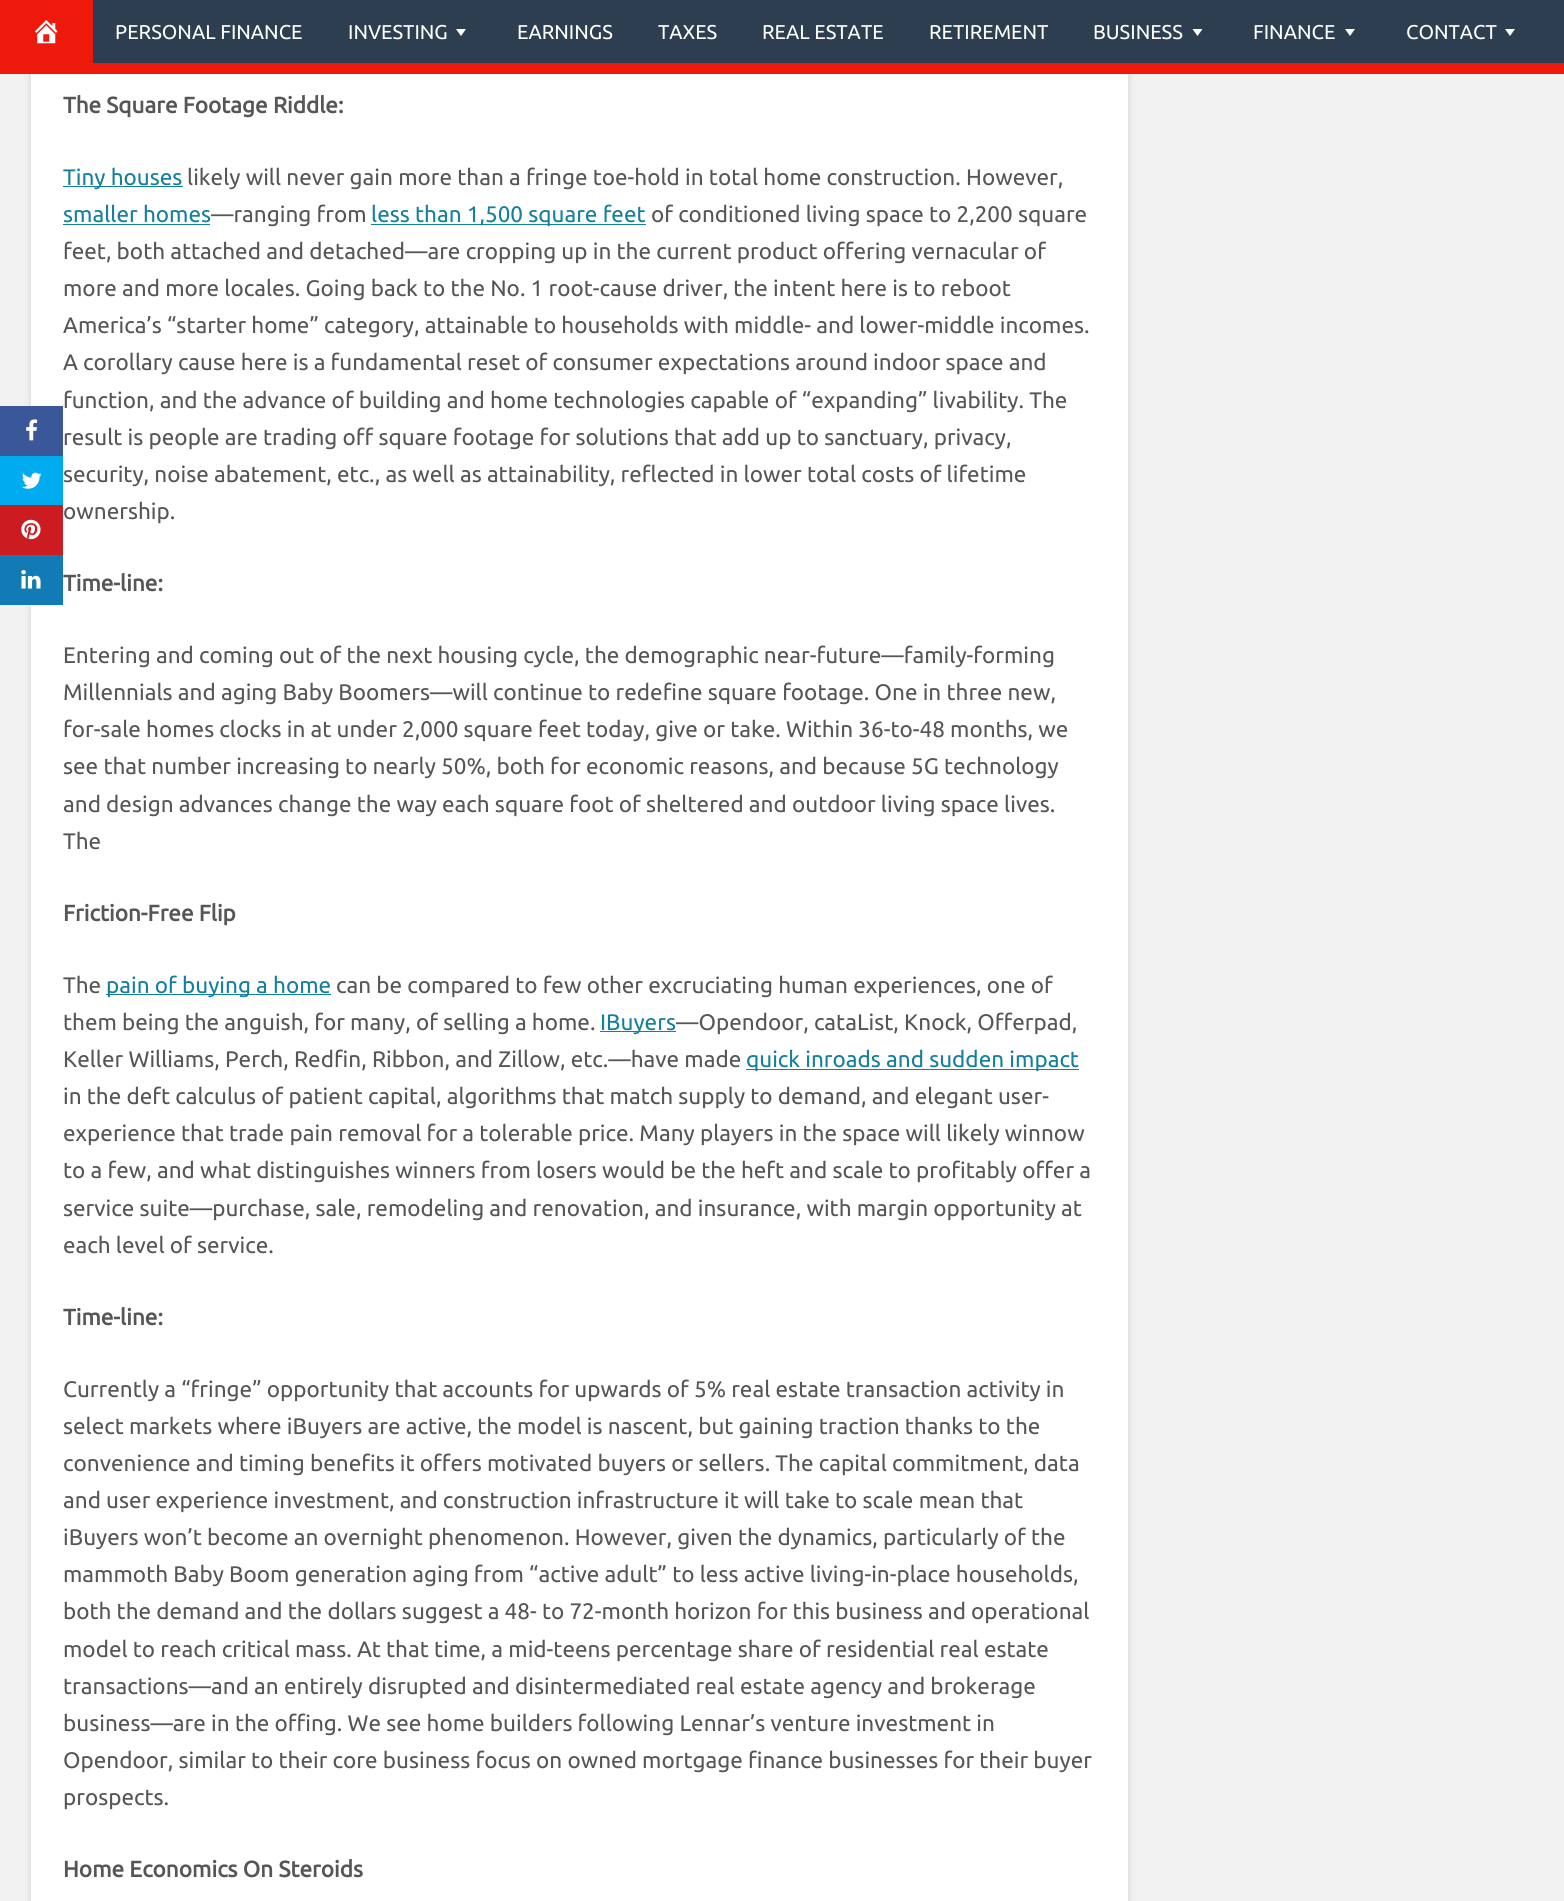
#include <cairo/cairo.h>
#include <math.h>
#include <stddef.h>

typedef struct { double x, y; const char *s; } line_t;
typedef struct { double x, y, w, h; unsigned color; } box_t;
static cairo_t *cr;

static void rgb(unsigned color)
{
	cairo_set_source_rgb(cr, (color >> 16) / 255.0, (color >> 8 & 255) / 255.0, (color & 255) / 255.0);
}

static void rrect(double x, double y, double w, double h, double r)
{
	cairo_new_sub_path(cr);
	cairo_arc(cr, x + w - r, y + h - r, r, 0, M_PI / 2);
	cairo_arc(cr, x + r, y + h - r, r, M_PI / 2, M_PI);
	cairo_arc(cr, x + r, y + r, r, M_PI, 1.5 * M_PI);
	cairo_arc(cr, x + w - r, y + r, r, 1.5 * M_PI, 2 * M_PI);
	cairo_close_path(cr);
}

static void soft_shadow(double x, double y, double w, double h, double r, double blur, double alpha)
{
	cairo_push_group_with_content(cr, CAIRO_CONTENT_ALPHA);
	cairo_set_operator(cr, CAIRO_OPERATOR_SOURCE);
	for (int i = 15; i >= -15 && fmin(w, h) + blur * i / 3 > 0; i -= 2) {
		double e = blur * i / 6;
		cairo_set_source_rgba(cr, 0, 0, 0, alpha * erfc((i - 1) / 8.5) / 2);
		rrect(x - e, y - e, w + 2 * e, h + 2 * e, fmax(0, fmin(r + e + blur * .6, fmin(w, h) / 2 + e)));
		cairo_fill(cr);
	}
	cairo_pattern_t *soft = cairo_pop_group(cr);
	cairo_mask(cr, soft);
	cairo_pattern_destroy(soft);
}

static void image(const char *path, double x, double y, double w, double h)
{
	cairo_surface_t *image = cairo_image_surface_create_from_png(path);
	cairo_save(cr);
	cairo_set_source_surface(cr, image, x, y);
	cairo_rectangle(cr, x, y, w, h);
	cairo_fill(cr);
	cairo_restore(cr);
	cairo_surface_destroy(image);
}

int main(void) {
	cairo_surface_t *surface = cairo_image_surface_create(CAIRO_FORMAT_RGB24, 1564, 1901);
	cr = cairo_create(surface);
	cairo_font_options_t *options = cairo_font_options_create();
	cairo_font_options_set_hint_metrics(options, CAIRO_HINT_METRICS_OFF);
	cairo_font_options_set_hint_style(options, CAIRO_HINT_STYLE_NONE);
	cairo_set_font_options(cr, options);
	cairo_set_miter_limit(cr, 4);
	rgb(0xf2f2f2);
	cairo_paint(cr);
	rgb(0x000000);
	soft_shadow(33, -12, 1093, 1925, 0, 4, 0.25);
	{
		static const box_t items[] = {
			{93, 0, 1471, 63, 0x2c3e50},
			{0, 63, 1564, 11, 0xef190b},
			{0, 0, 93, 63, 0xef190b},
		};
		for (size_t i = 0; i < sizeof items / sizeof *items; i++) {
			rgb(items[i].color);
			cairo_rectangle(cr, items[i].x, items[i].y, items[i].w, items[i].h);
			cairo_fill(cr);
		}
	}
	image("img/1.png", 35, 20, 23, 24);
	rgb(0xffffff);
	cairo_new_path(cr);
	cairo_move_to(cr, 466, 29);
	cairo_line_to(cr, 461, 36);
	cairo_line_to(cr, 456, 29);
	cairo_close_path(cr);
	cairo_fill(cr);
	cairo_new_path(cr);
	cairo_move_to(cr, 1202.5, 29);
	cairo_line_to(cr, 1197.5, 36);
	cairo_line_to(cr, 1192.5, 29);
	cairo_close_path(cr);
	cairo_fill(cr);
	cairo_new_path(cr);
	cairo_move_to(cr, 1355, 29);
	cairo_line_to(cr, 1350, 36);
	cairo_line_to(cr, 1345, 29);
	cairo_close_path(cr);
	cairo_fill(cr);
	cairo_new_path(cr);
	cairo_move_to(cr, 1515, 29);
	cairo_line_to(cr, 1510, 36);
	cairo_line_to(cr, 1505, 29);
	cairo_close_path(cr);
	cairo_fill(cr);
	cairo_rectangle(cr, 31, 74, 1097, 1827);
	cairo_fill(cr);
	rgb(0x3a579a);
	cairo_rectangle(cr, 0, 406, 63, 50);
	cairo_fill(cr);
	image("img/2.png", 26, 419, 12, 22);
	rgb(0x00abf0);
	cairo_rectangle(cr, 0, 456, 63, 49);
	cairo_fill(cr);
	image("img/3.png", 22, 472, 20, 17);
	rgb(0xcd1c1f);
	cairo_rectangle(cr, 0, 505, 63, 50);
	cairo_fill(cr);
	image("img/4.png", 21, 519, 20, 21);
	{
		static const box_t items[] = {
			{63, 186, 120, 1, 0x14809b},
			{63, 224, 147, 1, 0x14809b},
			{371, 224, 275, 1, 0x14809b},
			{106, 994, 225, 1, 0x14809b},
			{600, 1031, 76, 1, 0x14809b},
			{746, 1069, 333, 1, 0x14809b},
		};
		for (size_t i = 0; i < sizeof items / sizeof *items; i++) {
			rgb(items[i].color);
			cairo_rectangle(cr, items[i].x, items[i].y, items[i].w, items[i].h);
			cairo_fill(cr);
		}
	}
	cairo_select_font_face(cr, "Ubuntu", CAIRO_FONT_SLANT_NORMAL, CAIRO_FONT_WEIGHT_NORMAL);
	cairo_set_font_size(cr, 20);
	rgb(0xffffff);
	{
		static const line_t items[] = {
			{115, 39, "PERSONAL FINANCE"},
			{348, 39, "INVESTING"},
			{517, 39, "EARNINGS"},
			{658, 39, "TAXES"},
			{762, 39, "REAL ESTATE"},
			{929, 39, "RETIREMENT"},
			{1093, 39, "BUSINESS"},
			{1253, 39, "FINANCE"},
			{1406, 39, "CONTACT"},
		};
		for (size_t i = 0; i < sizeof items / sizeof *items; i++) {
			cairo_move_to(cr, items[i].x, items[i].y);
			cairo_show_text(cr, items[i].s);
		}
	}
	cairo_select_font_face(cr, "Ubuntu", CAIRO_FONT_SLANT_NORMAL, CAIRO_FONT_WEIGHT_BOLD);
	cairo_set_font_size(cr, 22.5);
	rgb(0x565656);
	cairo_move_to(cr, 63, 113);
	cairo_show_text(cr, "The Square Footage Riddle:");
	cairo_select_font_face(cr, "Ubuntu", CAIRO_FONT_SLANT_NORMAL, CAIRO_FONT_WEIGHT_NORMAL);
	rgb(0x14809b);
	cairo_move_to(cr, 63, 185);
	cairo_show_text(cr, "Tiny houses");
	rgb(0x565656);
	cairo_move_to(cr, 187, 185);
	cairo_show_text(cr, "likely will never gain more than a fringe toe-hold in total home construction. However,");
	rgb(0x14809b);
	cairo_move_to(cr, 63, 222);
	cairo_show_text(cr, "smaller homes");
	rgb(0x565656);
	cairo_move_to(cr, 211, 222);
	cairo_show_text(cr, "—ranging from");
	rgb(0x14809b);
	cairo_move_to(cr, 371, 222);
	cairo_show_text(cr, "less than 1,500 square feet");
	rgb(0x565656);
	{
		static const line_t items[] = {
			{651, 222, "of conditioned living space to 2,200 square"},
			{63, 259, "feet, both attached and detached—are cropping up in the current product offering vernacular of"},
			{63, 296, "more and more locales. Going back to the No. 1 root-cause driver, the intent here is to reboot"},
			{63, 333, "America’s “starter home” category, attainable to households with middle- and lower-middle incomes."},
			{63, 370, "A corollary cause here is a fundamental reset of consumer expectations around indoor space and"},
			{63, 408, "function, and the advance of building and home technologies capable of “expanding” livability. The"},
			{63, 445, "result is people are trading off square footage for solutions that add up to sanctuary, privacy,"},
			{63, 482, "security, noise abatement, etc., as well as attainability, reflected in lower total costs of lifetime"},
			{63, 519, "ownership."},
		};
		for (size_t i = 0; i < sizeof items / sizeof *items; i++) {
			cairo_move_to(cr, items[i].x, items[i].y);
			cairo_show_text(cr, items[i].s);
		}
	}
	cairo_select_font_face(cr, "Ubuntu", CAIRO_FONT_SLANT_NORMAL, CAIRO_FONT_WEIGHT_BOLD);
	cairo_move_to(cr, 63, 591);
	cairo_show_text(cr, "Time-line:");
	rgb(0x127bb6);
	cairo_rectangle(cr, 0, 555, 63, 50);
	cairo_fill(cr);
	image("img/5.png", 21, 570, 20, 19);
	cairo_select_font_face(cr, "Ubuntu", CAIRO_FONT_SLANT_NORMAL, CAIRO_FONT_WEIGHT_NORMAL);
	rgb(0x565656);
	{
		static const line_t items[] = {
			{63, 663, "Entering and coming out of the next housing cycle, the demographic near-future—family-forming"},
			{63, 700, "Millennials and aging Baby Boomers—will continue to redefine square footage. One in three new,"},
			{63, 737, "for-sale homes clocks in at under 2,000 square feet today, give or take. Within 36-to-48 months, we"},
			{63, 774, "see that number increasing to nearly 50%, both for economic reasons, and because 5G technology"},
			{63, 812, "and design advances change the way each square foot of sheltered and outdoor living space lives."},
			{63, 849, "The"},
		};
		for (size_t i = 0; i < sizeof items / sizeof *items; i++) {
			cairo_move_to(cr, items[i].x, items[i].y);
			cairo_show_text(cr, items[i].s);
		}
	}
	cairo_select_font_face(cr, "Ubuntu", CAIRO_FONT_SLANT_NORMAL, CAIRO_FONT_WEIGHT_BOLD);
	cairo_move_to(cr, 63, 921);
	cairo_show_text(cr, "Friction-Free Flip");
	cairo_select_font_face(cr, "Ubuntu", CAIRO_FONT_SLANT_NORMAL, CAIRO_FONT_WEIGHT_NORMAL);
	cairo_move_to(cr, 63, 993);
	cairo_show_text(cr, "The");
	rgb(0x14809b);
	cairo_move_to(cr, 106, 993);
	cairo_show_text(cr, "pain of buying a home");
	rgb(0x565656);
	cairo_move_to(cr, 336, 993);
	cairo_show_text(cr, "can be compared to few other excruciating human experiences, one of");
	cairo_move_to(cr, 63, 1030);
	cairo_show_text(cr, "them being the anguish, for many, of selling a home.");
	rgb(0x14809b);
	cairo_move_to(cr, 600, 1030);
	cairo_show_text(cr, "IBuyers");
	rgb(0x565656);
	cairo_move_to(cr, 676, 1030);
	cairo_show_text(cr, "—Opendoor, cataList, Knock, Offerpad,");
	cairo_move_to(cr, 63, 1067);
	cairo_show_text(cr, "Keller Williams, Perch, Redfin, Ribbon, and Zillow, etc.—have made");
	rgb(0x14809b);
	cairo_move_to(cr, 746, 1067);
	cairo_show_text(cr, "quick inroads and sudden impact");
	rgb(0x565656);
	{
		static const line_t items[] = {
			{63, 1104, "in the deft calculus of patient capital, algorithms that match supply to demand, and elegant user-"},
			{63, 1141, "experience that trade pain removal for a tolerable price. Many players in the space will likely winnow"},
			{63, 1178, "to a few, and what distinguishes winners from losers would be the heft and scale to profitably offer a"},
			{63, 1216, "service suite—purchase, sale, remodeling and renovation, and insurance, with margin opportunity at"},
			{63, 1253, "each level of service."},
		};
		for (size_t i = 0; i < sizeof items / sizeof *items; i++) {
			cairo_move_to(cr, items[i].x, items[i].y);
			cairo_show_text(cr, items[i].s);
		}
	}
	cairo_select_font_face(cr, "Ubuntu", CAIRO_FONT_SLANT_NORMAL, CAIRO_FONT_WEIGHT_BOLD);
	cairo_move_to(cr, 63, 1325);
	cairo_show_text(cr, "Time-line:");
	cairo_select_font_face(cr, "Ubuntu", CAIRO_FONT_SLANT_NORMAL, CAIRO_FONT_WEIGHT_NORMAL);
	{
		static const line_t items[] = {
			{63, 1397, "Currently a “fringe” opportunity that accounts for upwards of 5% real estate transaction activity in"},
			{63, 1434, "select markets where iBuyers are active, the model is nascent, but gaining traction thanks to the"},
			{63, 1471, "convenience and timing benefits it offers motivated buyers or sellers. The capital commitment, data"},
			{63, 1508, "and user experience investment, and construction infrastructure it will take to scale mean that"},
			{63, 1545, "iBuyers won’t become an overnight phenomenon. However, given the dynamics, particularly of the"},
			{63, 1582, "mammoth Baby Boom generation aging from “active adult” to less active living-in-place households,"},
			{63, 1619, "both the demand and the dollars suggest a 48- to 72-month horizon for this business and operational"},
			{63, 1657, "model to reach critical mass. At that time, a mid-teens percentage share of residential real estate"},
			{63, 1694, "transactions—and an entirely disrupted and disintermediated real estate agency and brokerage"},
			{63, 1731, "business—are in the offing. We see home builders following Lennar’s venture investment in"},
			{63, 1768, "Opendoor, similar to their core business focus on owned mortgage finance businesses for their buyer"},
			{63, 1805, "prospects."},
		};
		for (size_t i = 0; i < sizeof items / sizeof *items; i++) {
			cairo_move_to(cr, items[i].x, items[i].y);
			cairo_show_text(cr, items[i].s);
		}
	}
	cairo_select_font_face(cr, "Ubuntu", CAIRO_FONT_SLANT_NORMAL, CAIRO_FONT_WEIGHT_BOLD);
	cairo_move_to(cr, 63, 1877);
	cairo_show_text(cr, "Home Economics On Steroids");
	cairo_surface_write_to_png(surface, "page.png");
	cairo_font_options_destroy(options);
	cairo_destroy(cr);
	cairo_surface_destroy(surface);
	return 0;
}
